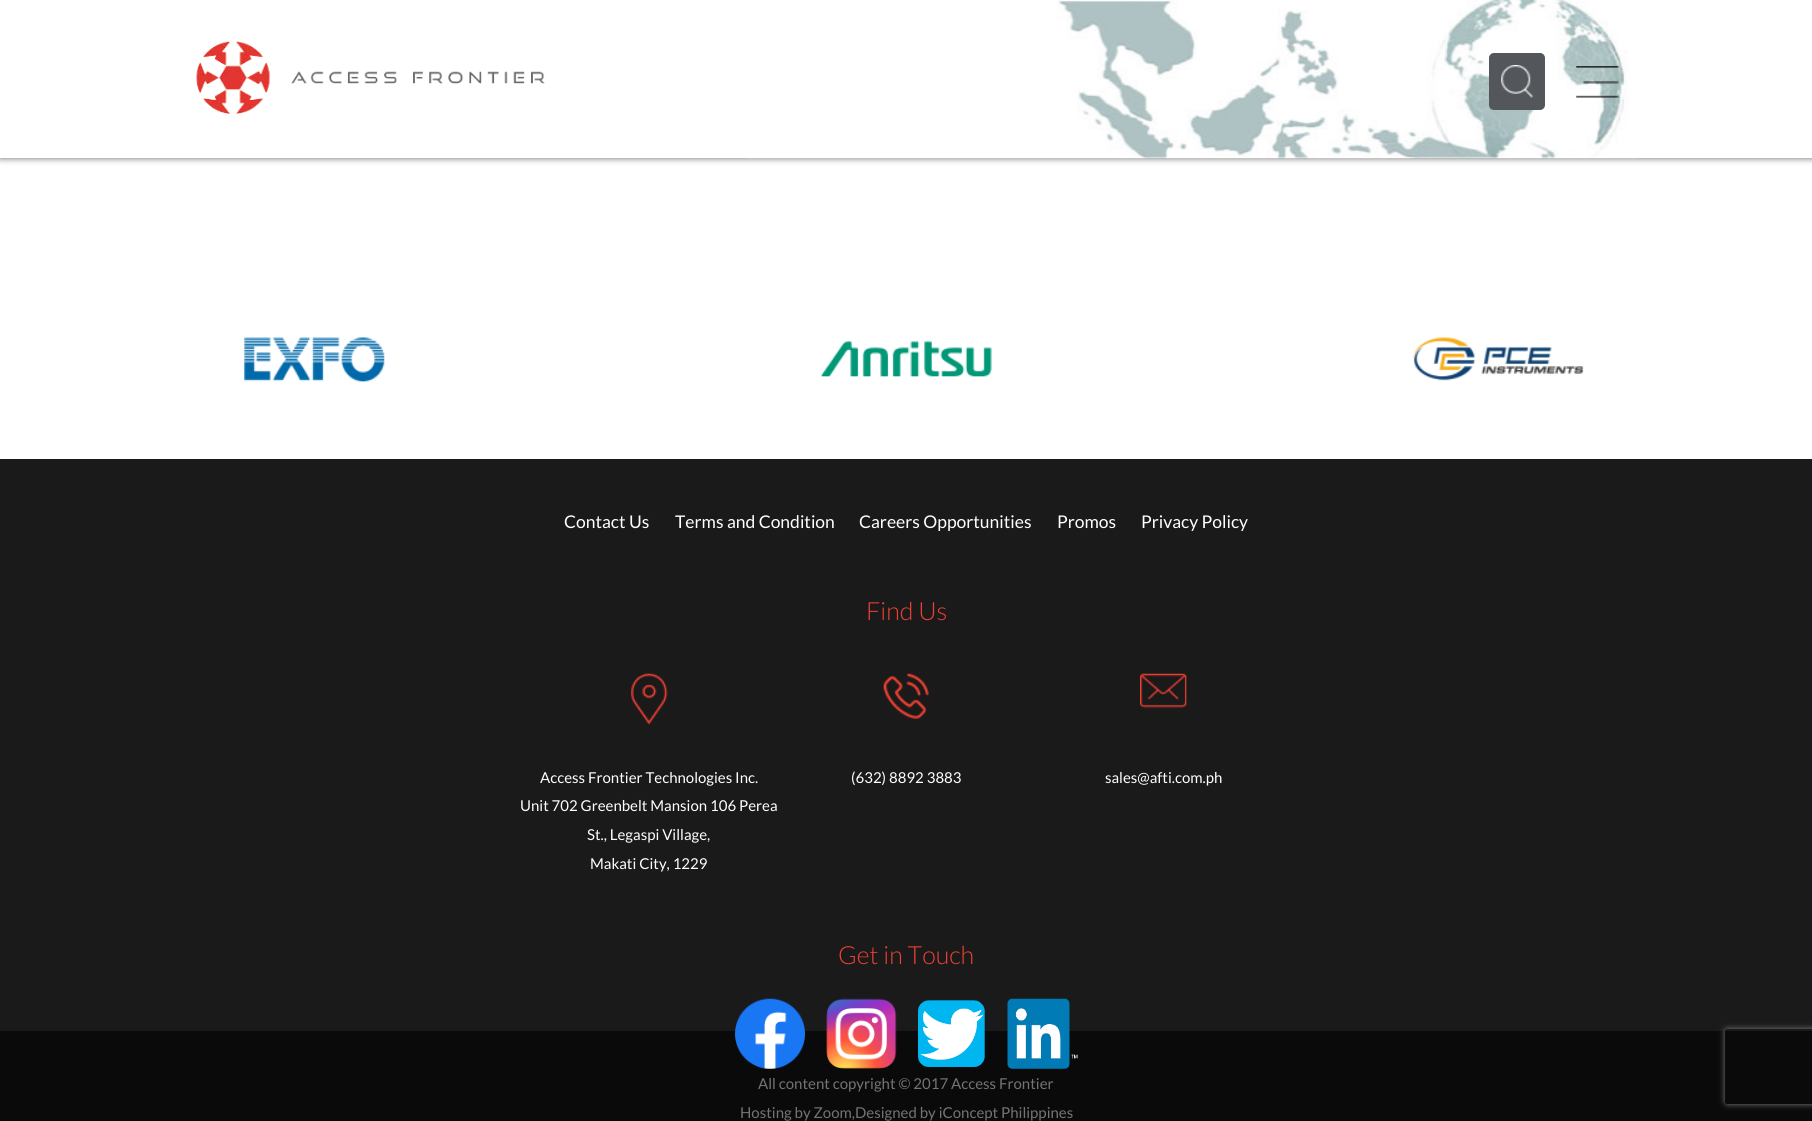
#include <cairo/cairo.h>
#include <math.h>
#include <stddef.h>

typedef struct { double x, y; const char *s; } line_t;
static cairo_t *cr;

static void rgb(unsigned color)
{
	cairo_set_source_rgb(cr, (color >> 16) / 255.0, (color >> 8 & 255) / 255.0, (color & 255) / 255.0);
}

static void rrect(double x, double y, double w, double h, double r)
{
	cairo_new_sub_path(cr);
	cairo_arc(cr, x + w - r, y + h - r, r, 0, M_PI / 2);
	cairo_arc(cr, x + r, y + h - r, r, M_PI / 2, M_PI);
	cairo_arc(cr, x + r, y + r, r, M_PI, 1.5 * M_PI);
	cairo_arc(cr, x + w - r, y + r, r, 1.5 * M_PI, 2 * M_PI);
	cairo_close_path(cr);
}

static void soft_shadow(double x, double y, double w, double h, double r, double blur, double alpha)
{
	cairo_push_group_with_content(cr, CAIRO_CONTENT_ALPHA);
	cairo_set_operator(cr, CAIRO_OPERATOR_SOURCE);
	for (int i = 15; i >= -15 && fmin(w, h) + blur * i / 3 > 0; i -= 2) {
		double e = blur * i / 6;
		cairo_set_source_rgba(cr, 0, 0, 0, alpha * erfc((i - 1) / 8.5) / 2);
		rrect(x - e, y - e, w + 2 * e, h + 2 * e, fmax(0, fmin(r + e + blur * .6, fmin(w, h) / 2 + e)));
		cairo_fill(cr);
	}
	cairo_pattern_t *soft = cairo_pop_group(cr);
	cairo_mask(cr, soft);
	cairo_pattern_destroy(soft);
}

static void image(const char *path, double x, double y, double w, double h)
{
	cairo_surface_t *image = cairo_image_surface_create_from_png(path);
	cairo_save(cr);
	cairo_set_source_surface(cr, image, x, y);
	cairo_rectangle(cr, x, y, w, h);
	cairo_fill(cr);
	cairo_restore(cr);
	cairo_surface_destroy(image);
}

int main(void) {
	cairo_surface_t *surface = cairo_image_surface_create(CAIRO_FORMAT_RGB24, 1812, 1121);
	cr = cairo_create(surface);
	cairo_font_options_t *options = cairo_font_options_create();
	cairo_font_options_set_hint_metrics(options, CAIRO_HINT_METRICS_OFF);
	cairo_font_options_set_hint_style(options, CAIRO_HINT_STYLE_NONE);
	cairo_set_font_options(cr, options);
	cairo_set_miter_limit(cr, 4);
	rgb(0xffffff);
	cairo_paint(cr);
	rgb(0x888888);
	soft_shadow(0, 1, 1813, 158, 0, 3, 1);
	rgb(0xffffff);
	cairo_rectangle(cr, 0, 0, 1812, 158);
	cairo_fill(cr);
	image("img/1.png", 748, 0, 890, 159);
	image("img/2.png", 196, 41, 349, 73);
	rgb(0x53565a);
	rrect(1489, 53, 56, 57, 5);
	cairo_fill(cr);
	image("img/3.png", 1501, 65, 33, 33);
	image("img/4.png", 1576, 66, 44, 32);
	image("img/5.png", 244, 337, 141, 45);
	image("img/6.png", 821, 341, 171, 36);
	image("img/7.png", 1412, 337, 172, 44);
	rgb(0x1a1a1a);
	cairo_rectangle(cr, 0, 459, 1812, 572);
	cairo_fill(cr);
	image("img/8.png", 631, 673, 37, 52);
	image("img/9.png", 883, 673, 46, 46);
	image("img/10.png", 1140, 673, 47, 35);
	rgb(0x0a0a0a);
	cairo_rectangle(cr, 0, 1031, 1812, 90);
	cairo_fill(cr);
	image("img/11.png", 735, 998, 70, 71);
	image("img/12.png", 826, 998, 71, 71);
	image("img/13.png", 918, 1000, 67, 67);
	image("img/14.png", 1007, 998, 71, 71);
	cairo_save(cr);
	cairo_set_fill_rule(cr, CAIRO_FILL_RULE_EVEN_ODD);
	cairo_new_path(cr);
	cairo_move_to(cr, 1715, 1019);
	cairo_line_to(cr, 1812, 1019);
	cairo_line_to(cr, 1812, 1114);
	cairo_line_to(cr, 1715, 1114);
	cairo_close_path(cr);
	cairo_move_to(cr, 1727.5, 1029);
	cairo_line_to(cr, 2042.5, 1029);
	cairo_curve_to(cr, 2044, 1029, 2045, 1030, 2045, 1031.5);
	cairo_line_to(cr, 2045, 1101.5);
	cairo_curve_to(cr, 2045, 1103, 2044, 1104, 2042.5, 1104);
	cairo_line_to(cr, 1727.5, 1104);
	cairo_curve_to(cr, 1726, 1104, 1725, 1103, 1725, 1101.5);
	cairo_line_to(cr, 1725, 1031.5);
	cairo_curve_to(cr, 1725, 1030, 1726, 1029, 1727.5, 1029);
	cairo_close_path(cr);
	cairo_clip(cr);
	rgb(0x808080);
	soft_shadow(1725, 1029, 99, 75, 2.5, 3, 1);
	cairo_restore(cr);
	cairo_select_font_face(cr, "Lato", CAIRO_FONT_SLANT_NORMAL, CAIRO_FONT_WEIGHT_NORMAL);
	cairo_set_font_size(cr, 17.5);
	rgb(0xffffff);
	{
		static const line_t items[] = {
			{564, 528, "Contact Us"},
			{675, 528, "Terms and Condition"},
			{859, 528, "Careers Opportunities"},
			{1057, 528, "Promos"},
			{1141, 528, "Privacy Policy"},
		};
		for (size_t i = 0; i < sizeof items / sizeof *items; i++) {
			cairo_move_to(cr, items[i].x, items[i].y);
			cairo_show_text(cr, items[i].s);
		}
	}
	cairo_select_font_face(cr, "Lato Light", CAIRO_FONT_SLANT_NORMAL, CAIRO_FONT_WEIGHT_NORMAL);
	cairo_set_font_size(cr, 25);
	rgb(0xee4033);
	cairo_move_to(cr, 866, 620);
	cairo_show_text(cr, "Find Us");
	cairo_select_font_face(cr, "Lato", CAIRO_FONT_SLANT_NORMAL, CAIRO_FONT_WEIGHT_NORMAL);
	cairo_set_font_size(cr, 15);
	rgb(0xffffff);
	{
		static const line_t items[] = {
			{540, 783, "Access Frontier Technologies Inc."},
			{520, 811, "Unit 702 Greenbelt Mansion 106 Perea"},
			{587, 840, "St., Legaspi Village,"},
			{590, 869, "Makati City, 1229"},
			{851, 783, "(632) 8892 3883"},
			{1105, 783, "sales@afti.com.ph"},
		};
		for (size_t i = 0; i < sizeof items / sizeof *items; i++) {
			cairo_move_to(cr, items[i].x, items[i].y);
			cairo_show_text(cr, items[i].s);
		}
	}
	cairo_select_font_face(cr, "Lato Light", CAIRO_FONT_SLANT_NORMAL, CAIRO_FONT_WEIGHT_NORMAL);
	cairo_set_font_size(cr, 25);
	rgb(0xee4033);
	cairo_move_to(cr, 838, 964);
	cairo_show_text(cr, "Get in Touch");
	cairo_select_font_face(cr, "Lato", CAIRO_FONT_SLANT_NORMAL, CAIRO_FONT_WEIGHT_NORMAL);
	cairo_set_font_size(cr, 15);
	rgb(0x747474);
	cairo_move_to(cr, 758, 1089);
	cairo_show_text(cr, "All content copyright © 2017 Access Frontier");
	cairo_move_to(cr, 740, 1118);
	cairo_show_text(cr, "Hosting by Zoom,Designed by iConcept Philippines");
	cairo_surface_write_to_png(surface, "page.png");
	cairo_font_options_destroy(options);
	cairo_destroy(cr);
	cairo_surface_destroy(surface);
	return 0;
}
